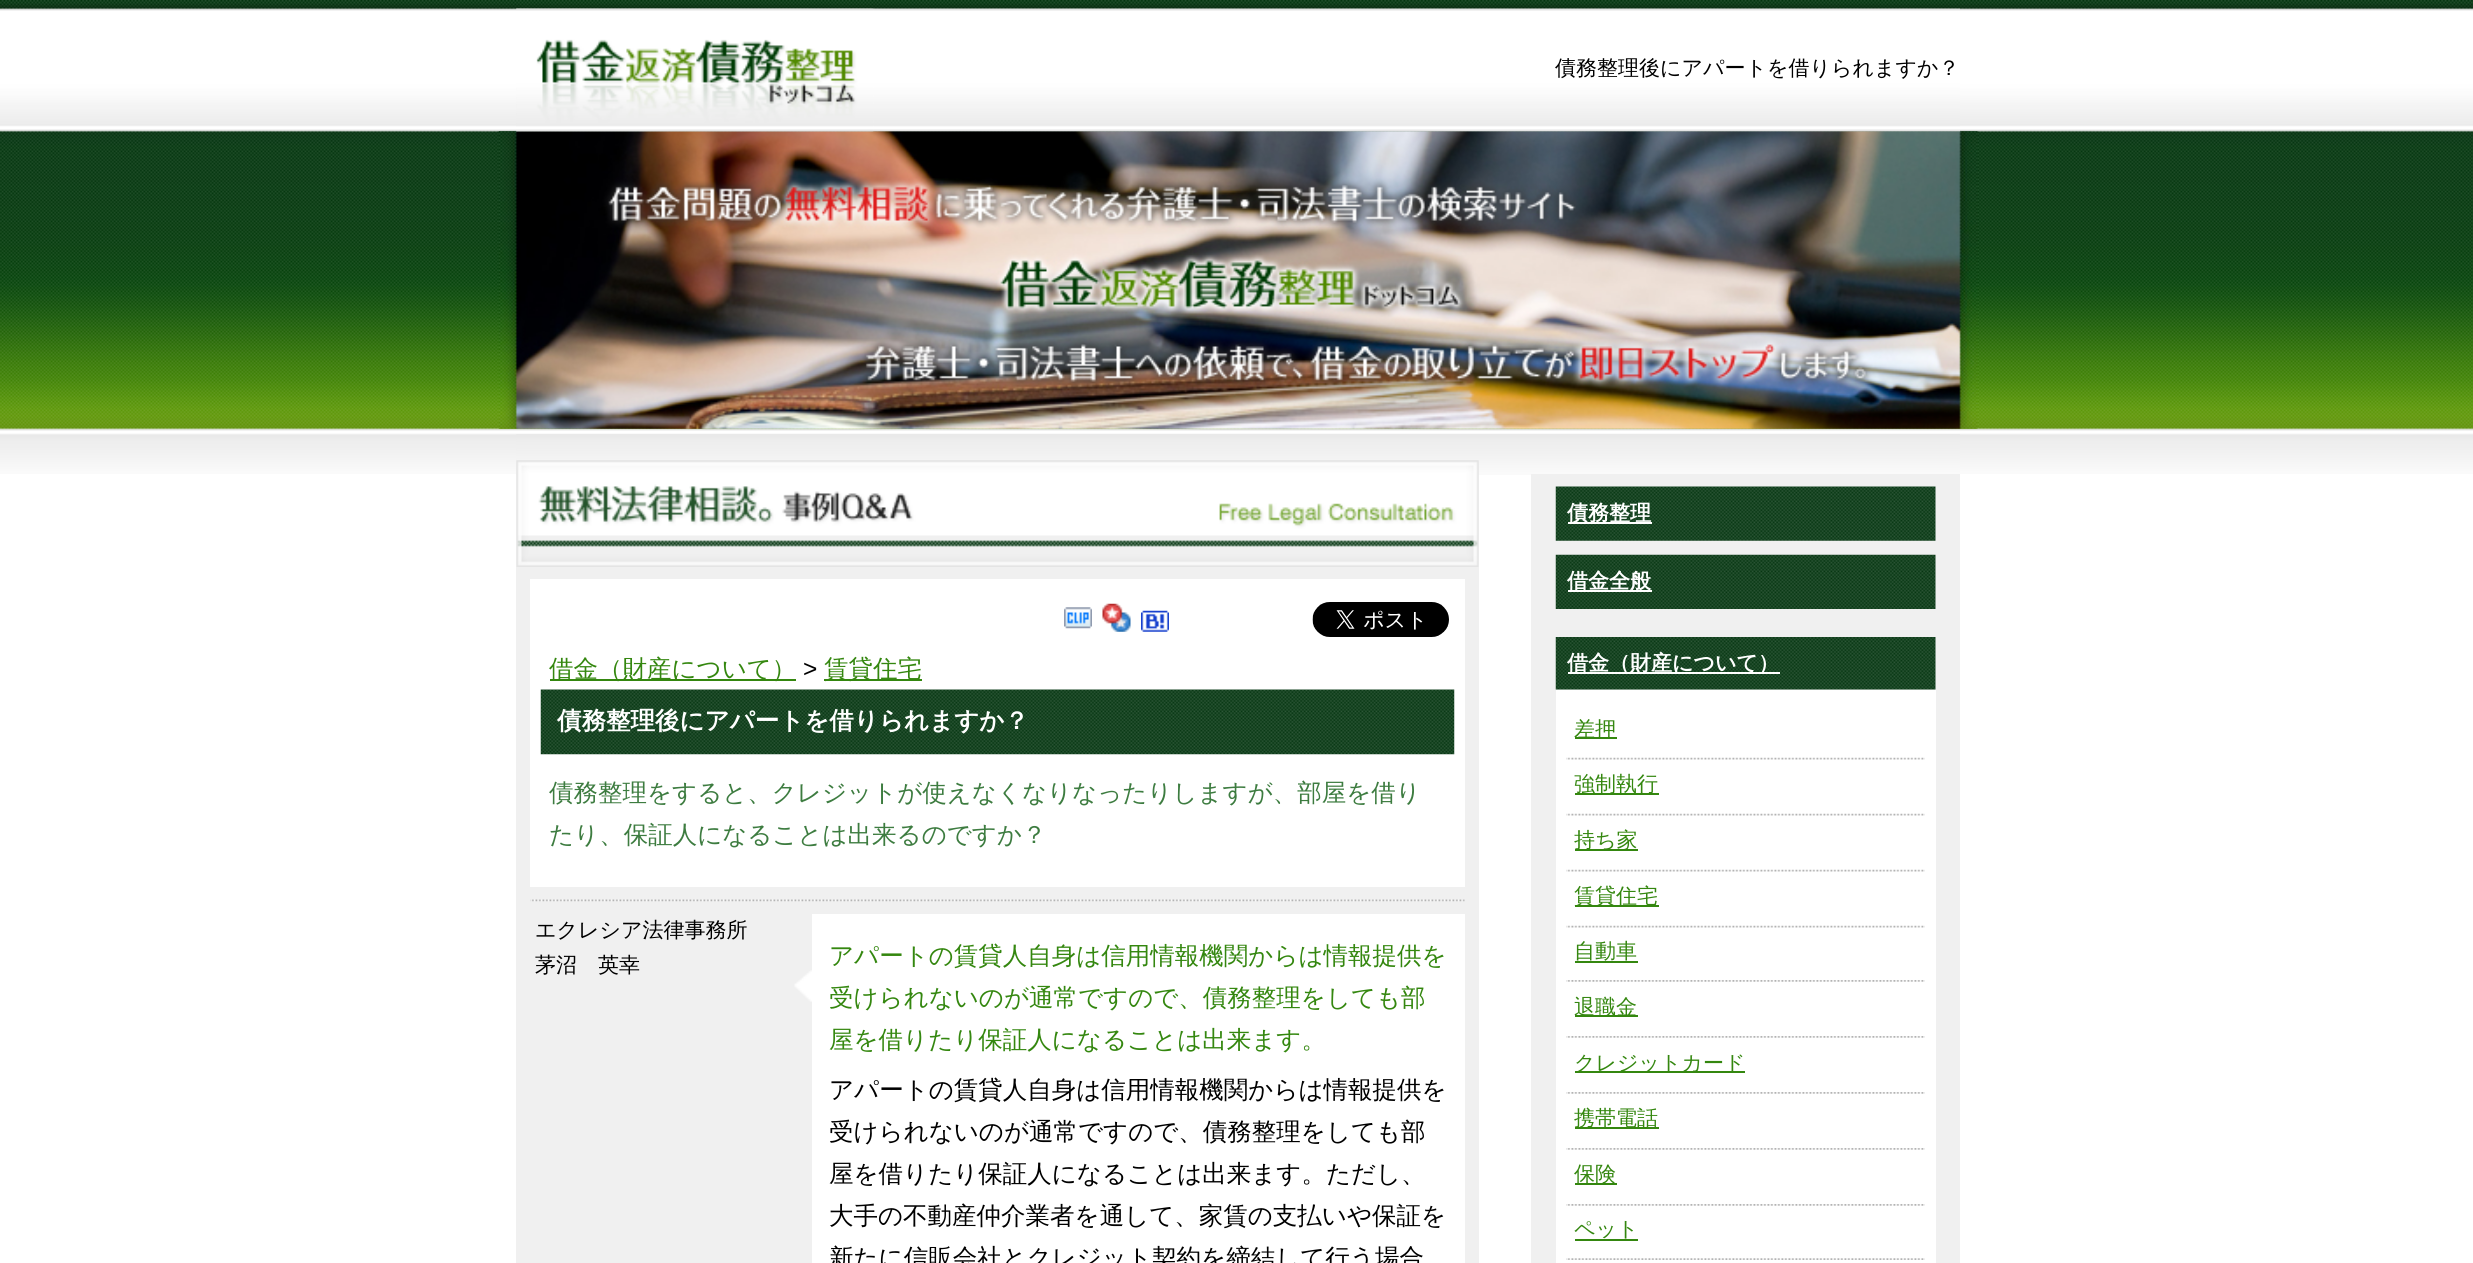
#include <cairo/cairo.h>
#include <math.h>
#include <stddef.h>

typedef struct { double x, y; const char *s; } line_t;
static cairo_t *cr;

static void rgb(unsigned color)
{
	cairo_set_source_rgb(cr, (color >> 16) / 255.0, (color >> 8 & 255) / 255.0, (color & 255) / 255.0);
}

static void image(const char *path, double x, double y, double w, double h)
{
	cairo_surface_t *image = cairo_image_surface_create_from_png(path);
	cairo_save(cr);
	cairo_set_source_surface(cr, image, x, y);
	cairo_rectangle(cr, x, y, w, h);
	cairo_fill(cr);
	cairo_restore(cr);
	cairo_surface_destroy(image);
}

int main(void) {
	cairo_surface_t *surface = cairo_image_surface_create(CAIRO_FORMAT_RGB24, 2473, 1263);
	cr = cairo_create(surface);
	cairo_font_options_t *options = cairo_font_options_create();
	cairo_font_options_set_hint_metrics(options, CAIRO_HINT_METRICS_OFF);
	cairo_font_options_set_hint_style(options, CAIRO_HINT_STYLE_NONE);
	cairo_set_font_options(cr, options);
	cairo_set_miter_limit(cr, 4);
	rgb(0xffffff);
	cairo_paint(cr);
	image("img/1.png", 0, 0, 2473, 474);
	image("img/4.png", 498, 131, 1480, 298);
	image("img/2.png", 516, 8, 1444, 124);
	image("img/3.png", 516, 8, 358, 124);
	image("img/5.png", 516, 434, 1444, 41);
	image("img/6.png", 516, 460, 963, 107);
	rgb(0xf0f0f0);
	cairo_rectangle(cr, 516, 567, 963, 696);
	cairo_fill(cr);
	rgb(0xffffff);
	cairo_rectangle(cr, 530, 579, 935, 308);
	cairo_fill(cr);
	image("img/7.png", 1064, 607, 28, 22);
	image("img/8.png", 1102, 603, 29, 29);
	image("img/9.png", 1141, 610, 28, 22);
	image("img/10.png", 1312, 602, 137, 35);
	rgb(0x34870f);
	cairo_rectangle(cr, 550, 679, 246, 2);
	cairo_fill(cr);
	cairo_rectangle(cr, 824, 679, 98, 2);
	cairo_fill(cr);
	image("img/11.png", 540, 689, 915, 66);
	image("img/12.png", 530, 899, 935, 3);
	image("img/13.png", 794, 970, 18, 32);
	rgb(0xffffff);
	cairo_rectangle(cr, 812, 914, 653, 349);
	cairo_fill(cr);
	rgb(0xf0f0f0);
	cairo_rectangle(cr, 1531, 474, 429, 789);
	cairo_fill(cr);
	image("img/14.png", 1555, 486, 381, 55);
	rgb(0xffffff);
	cairo_rectangle(cr, 1568, 522, 84, 2);
	cairo_fill(cr);
	image("img/15.png", 1555, 554, 381, 55);
	cairo_rectangle(cr, 1568, 590, 84, 2);
	cairo_fill(cr);
	image("img/16.png", 1555, 637, 381, 53);
	cairo_rectangle(cr, 1568, 672, 212, 2);
	cairo_fill(cr);
	cairo_rectangle(cr, 1556, 690, 380, 573);
	cairo_fill(cr);
	image("img/17.png", 1566, 757, 359, 3);
	rgb(0x34870f);
	cairo_rectangle(cr, 1575, 737, 42, 2);
	cairo_fill(cr);
	image("img/17.png", 1566, 813, 359, 3);
	cairo_rectangle(cr, 1575, 793, 84, 2);
	cairo_fill(cr);
	image("img/17.png", 1566, 869, 359, 3);
	cairo_rectangle(cr, 1575, 849, 63, 2);
	cairo_fill(cr);
	image("img/17.png", 1566, 925, 359, 3);
	cairo_rectangle(cr, 1575, 905, 84, 2);
	cairo_fill(cr);
	image("img/18.png", 1566, 980, 359, 2);
	cairo_rectangle(cr, 1575, 961, 63, 2);
	cairo_fill(cr);
	image("img/18.png", 1566, 1036, 359, 2);
	cairo_rectangle(cr, 1575, 1015, 63, 2);
	cairo_fill(cr);
	image("img/18.png", 1566, 1092, 359, 2);
	cairo_rectangle(cr, 1575, 1071, 170, 2);
	cairo_fill(cr);
	image("img/18.png", 1566, 1148, 359, 2);
	cairo_rectangle(cr, 1575, 1127, 84, 2);
	cairo_fill(cr);
	image("img/18.png", 1566, 1204, 359, 2);
	cairo_rectangle(cr, 1575, 1183, 42, 2);
	cairo_fill(cr);
	image("img/19.png", 1566, 1258, 359, 2);
	cairo_rectangle(cr, 1575, 1239, 63, 2);
	cairo_fill(cr);
	cairo_select_font_face(cr, "WenQuanYi Zen Hei Medium", CAIRO_FONT_SLANT_NORMAL, CAIRO_FONT_WEIGHT_NORMAL);
	cairo_set_font_size(cr, 21);
	rgb(0x000000);
	cairo_move_to(cr, 1555, 75);
	cairo_show_text(cr, "債務整理後にアパートを借りられますか？");
	cairo_set_font_size(cr, 24.5);
	rgb(0x34870f);
	cairo_move_to(cr, 549, 677);
	cairo_show_text(cr, "借金（財産について）");
	cairo_select_font_face(cr, "Liberation Sans", CAIRO_FONT_SLANT_NORMAL, CAIRO_FONT_WEIGHT_NORMAL);
	rgb(0x000000);
	cairo_move_to(cr, 803, 677);
	cairo_show_text(cr, ">");
	cairo_select_font_face(cr, "WenQuanYi Zen Hei Medium", CAIRO_FONT_SLANT_NORMAL, CAIRO_FONT_WEIGHT_NORMAL);
	rgb(0x34870f);
	cairo_move_to(cr, 824, 677);
	cairo_show_text(cr, "賃貸住宅");
	cairo_select_font_face(cr, "WenQuanYi Zen Hei", CAIRO_FONT_SLANT_NORMAL, CAIRO_FONT_WEIGHT_BOLD);
	rgb(0xffffff);
	cairo_move_to(cr, 557, 729);
	cairo_show_text(cr, "債務整理後にアパートを借りられますか？");
	cairo_select_font_face(cr, "WenQuanYi Zen Hei Medium", CAIRO_FONT_SLANT_NORMAL, CAIRO_FONT_WEIGHT_NORMAL);
	rgb(0x3d7c40);
	cairo_move_to(cr, 549, 801);
	cairo_show_text(cr, "債務整理をすると、クレジットが使えなくなりなったりしますが、部屋を借り");
	cairo_move_to(cr, 549, 843);
	cairo_show_text(cr, "たり、保証人になることは出来るのですか？");
	cairo_set_font_size(cr, 21);
	rgb(0x000000);
	cairo_move_to(cr, 535, 937);
	cairo_show_text(cr, "エクレシア法律事務所");
	cairo_move_to(cr, 535, 972);
	cairo_show_text(cr, "茅沼　英幸");
	cairo_set_font_size(cr, 24.5);
	rgb(0x34870f);
	{
		static const line_t items[] = {
			{829, 964, "アパートの賃貸人自身は信用情報機関からは情報提供を"},
			{829, 1006, "受けられないのが通常ですので、債務整理をしても部"},
			{829, 1048, "屋を借りたり保証人になることは出来ます。"},
		};
		for (size_t i = 0; i < sizeof items / sizeof *items; i++) {
			cairo_move_to(cr, items[i].x, items[i].y);
			cairo_show_text(cr, items[i].s);
		}
	}
	rgb(0x000000);
	{
		static const line_t items[] = {
			{829, 1098, "アパートの賃貸人自身は信用情報機関からは情報提供を"},
			{829, 1140, "受けられないのが通常ですので、債務整理をしても部"},
			{829, 1182, "屋を借りたり保証人になることは出来ます。ただし、"},
			{829, 1224, "大手の不動産仲介業者を通して、家賃の支払いや保証を"},
			{829, 1266, "新たに信販会社とクレジット契約を締結して行う場合"},
		};
		for (size_t i = 0; i < sizeof items / sizeof *items; i++) {
			cairo_move_to(cr, items[i].x, items[i].y);
			cairo_show_text(cr, items[i].s);
		}
	}
	cairo_select_font_face(cr, "WenQuanYi Zen Hei", CAIRO_FONT_SLANT_NORMAL, CAIRO_FONT_WEIGHT_BOLD);
	cairo_set_font_size(cr, 21);
	rgb(0xffffff);
	{
		static const line_t items[] = {
			{1567, 520, "債務整理"},
			{1567, 588, "借金全般"},
			{1567, 670, "借金（財産について）"},
		};
		for (size_t i = 0; i < sizeof items / sizeof *items; i++) {
			cairo_move_to(cr, items[i].x, items[i].y);
			cairo_show_text(cr, items[i].s);
		}
	}
	cairo_select_font_face(cr, "WenQuanYi Zen Hei Medium", CAIRO_FONT_SLANT_NORMAL, CAIRO_FONT_WEIGHT_NORMAL);
	rgb(0x34870f);
	{
		static const line_t items[] = {
			{1574, 736, "差押"},
			{1574, 791, "強制執行"},
			{1574, 847, "持ち家"},
			{1574, 903, "賃貸住宅"},
			{1574, 958, "自動車"},
			{1574, 1014, "退職金"},
			{1574, 1070, "クレジットカード"},
			{1574, 1125, "携帯電話"},
			{1574, 1181, "保険"},
			{1574, 1236, "ペット"},
		};
		for (size_t i = 0; i < sizeof items / sizeof *items; i++) {
			cairo_move_to(cr, items[i].x, items[i].y);
			cairo_show_text(cr, items[i].s);
		}
	}
	cairo_surface_write_to_png(surface, "page.png");
	cairo_font_options_destroy(options);
	cairo_destroy(cr);
	cairo_surface_destroy(surface);
	return 0;
}
